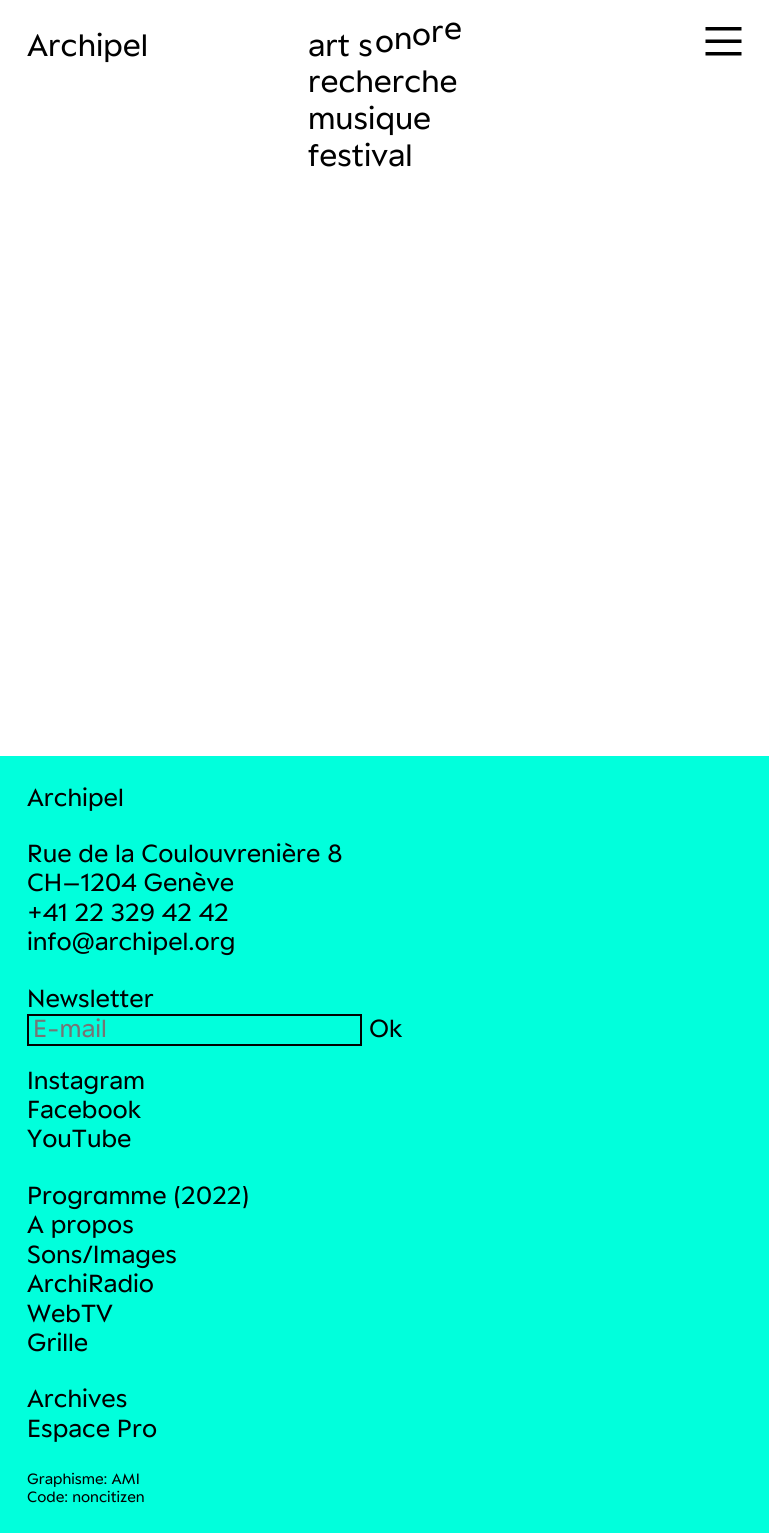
#include <cairo/cairo.h>
#include <math.h>
#include <stddef.h>

typedef struct { double x, y; const char *s; } line_t;
static cairo_t *cr;

static void rgb(unsigned color)
{
	cairo_set_source_rgb(cr, (color >> 16) / 255.0, (color >> 8 & 255) / 255.0, (color & 255) / 255.0);
}

int main(void) {
	cairo_surface_t *surface = cairo_image_surface_create(CAIRO_FORMAT_RGB24, 769, 1533);
	cr = cairo_create(surface);
	cairo_font_options_t *options = cairo_font_options_create();
	cairo_font_options_set_hint_metrics(options, CAIRO_HINT_METRICS_OFF);
	cairo_font_options_set_hint_style(options, CAIRO_HINT_STYLE_NONE);
	cairo_set_font_options(cr, options);
	cairo_set_miter_limit(cr, 4);
	rgb(0xffffff);
	cairo_paint(cr);
	rgb(0x000000);
	cairo_set_fill_rule(cr, CAIRO_FILL_RULE_EVEN_ODD);
	cairo_new_path(cr);
	cairo_move_to(cr, 705.5, 30.5);
	cairo_line_to(cr, 741.5, 30.5);
	cairo_line_to(cr, 741.5, 27);
	cairo_line_to(cr, 705.5, 27);
	cairo_close_path(cr);
	cairo_move_to(cr, 705.5, 43);
	cairo_line_to(cr, 741.5, 43);
	cairo_line_to(cr, 741.5, 39.5);
	cairo_line_to(cr, 705.5, 39.5);
	cairo_close_path(cr);
	cairo_move_to(cr, 705.5, 55.5);
	cairo_line_to(cr, 741.5, 55.5);
	cairo_line_to(cr, 741.5, 52);
	cairo_line_to(cr, 705.5, 52);
	cairo_close_path(cr);
	cairo_fill(cr);
	rgb(0x01ffdc);
	cairo_rectangle(cr, 0, 756, 769, 777);
	cairo_fill(cr);
	cairo_rectangle(cr, 28, 1015, 333, 30);
	rgb(0x000000);
	cairo_stroke(cr);
	cairo_select_font_face(cr, "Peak", CAIRO_FONT_SLANT_NORMAL, CAIRO_FONT_WEIGHT_NORMAL);
	cairo_set_font_size(cr, 33.75);
	{
		static const line_t items[] = {
			{27, 56, "Archipel"},
			{308, 56, "art s"},
			{375, 52, "o"},
			{394, 49, "n"},
			{412, 45, "o"},
			{431, 42, "r"},
			{444, 39, "e"},
			{308, 92, "recherche"},
			{308, 129, "musique"},
			{308, 166, "festival"},
		};
		for (size_t i = 0; i < sizeof items / sizeof *items; i++) {
			cairo_move_to(cr, items[i].x, items[i].y);
			cairo_show_text(cr, items[i].s);
		}
	}
	cairo_set_font_size(cr, 27);
	{
		static const line_t items[] = {
			{27, 806, "Archipel"},
			{27, 862, "Rue de la Coulouvrenière 8"},
			{27, 891, "CH–1204 Genève"},
			{27, 921, "+41 22 329 42 42"},
			{27, 950, "info@archipel.org"},
			{27, 1007, "Newsletter"},
		};
		for (size_t i = 0; i < sizeof items / sizeof *items; i++) {
			cairo_move_to(cr, items[i].x, items[i].y);
			cairo_show_text(cr, items[i].s);
		}
	}
	rgb(0x757575);
	cairo_move_to(cr, 33, 1037);
	cairo_show_text(cr, "E-mail");
	rgb(0x000000);
	{
		static const line_t items[] = {
			{369, 1037, "Ok"},
			{27, 1089, "Instagram"},
			{27, 1118, "Facebook"},
			{27, 1147, "YouTube"},
		};
		for (size_t i = 0; i < sizeof items / sizeof *items; i++) {
			cairo_move_to(cr, items[i].x, items[i].y);
			cairo_show_text(cr, items[i].s);
		}
	}
	cairo_select_font_face(cr, "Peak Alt", CAIRO_FONT_SLANT_NORMAL, CAIRO_FONT_WEIGHT_NORMAL);
	cairo_move_to(cr, 27, 1204);
	cairo_show_text(cr, "Programme (2022)");
	cairo_select_font_face(cr, "Peak", CAIRO_FONT_SLANT_NORMAL, CAIRO_FONT_WEIGHT_NORMAL);
	{
		static const line_t items[] = {
			{27, 1233, "A propos"},
			{27, 1263, "Sons/Images"},
			{27, 1292, "ArchiRadio"},
			{27, 1322, "WebTV"},
			{27, 1351, "Grille"},
			{27, 1407, "Archives"},
			{27, 1437, "Espace Pro"},
		};
		for (size_t i = 0; i < sizeof items / sizeof *items; i++) {
			cairo_move_to(cr, items[i].x, items[i].y);
			cairo_show_text(cr, items[i].s);
		}
	}
	cairo_set_font_size(cr, 16.25);
	cairo_move_to(cr, 27, 1484);
	cairo_show_text(cr, "Graphisme: AMI");
	cairo_move_to(cr, 27, 1502);
	cairo_show_text(cr, "Code: noncitizen");
	cairo_surface_write_to_png(surface, "page.png");
	cairo_font_options_destroy(options);
	cairo_destroy(cr);
	cairo_surface_destroy(surface);
	return 0;
}
